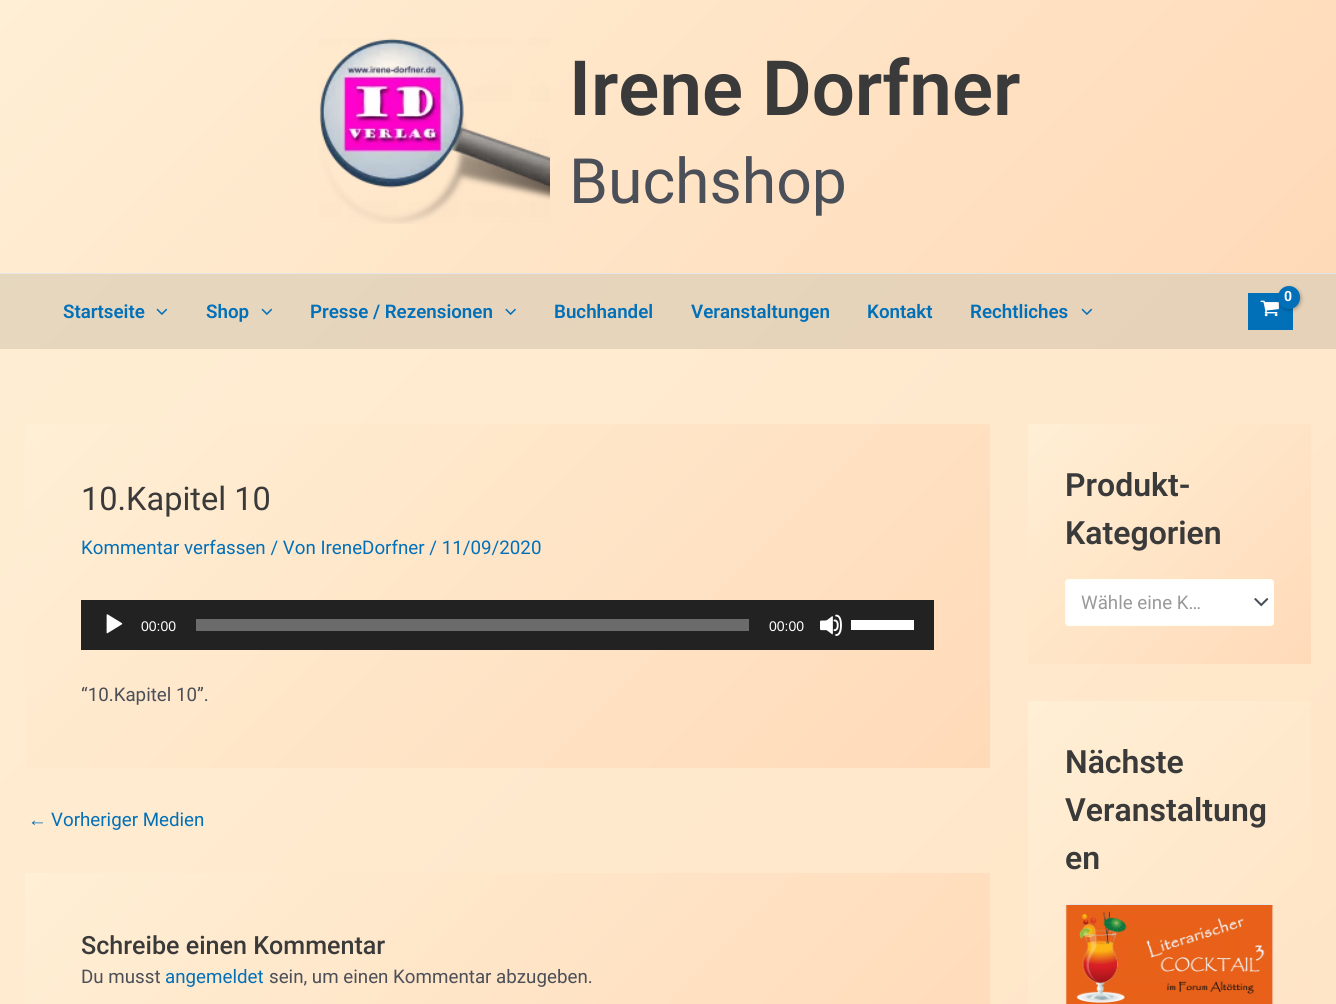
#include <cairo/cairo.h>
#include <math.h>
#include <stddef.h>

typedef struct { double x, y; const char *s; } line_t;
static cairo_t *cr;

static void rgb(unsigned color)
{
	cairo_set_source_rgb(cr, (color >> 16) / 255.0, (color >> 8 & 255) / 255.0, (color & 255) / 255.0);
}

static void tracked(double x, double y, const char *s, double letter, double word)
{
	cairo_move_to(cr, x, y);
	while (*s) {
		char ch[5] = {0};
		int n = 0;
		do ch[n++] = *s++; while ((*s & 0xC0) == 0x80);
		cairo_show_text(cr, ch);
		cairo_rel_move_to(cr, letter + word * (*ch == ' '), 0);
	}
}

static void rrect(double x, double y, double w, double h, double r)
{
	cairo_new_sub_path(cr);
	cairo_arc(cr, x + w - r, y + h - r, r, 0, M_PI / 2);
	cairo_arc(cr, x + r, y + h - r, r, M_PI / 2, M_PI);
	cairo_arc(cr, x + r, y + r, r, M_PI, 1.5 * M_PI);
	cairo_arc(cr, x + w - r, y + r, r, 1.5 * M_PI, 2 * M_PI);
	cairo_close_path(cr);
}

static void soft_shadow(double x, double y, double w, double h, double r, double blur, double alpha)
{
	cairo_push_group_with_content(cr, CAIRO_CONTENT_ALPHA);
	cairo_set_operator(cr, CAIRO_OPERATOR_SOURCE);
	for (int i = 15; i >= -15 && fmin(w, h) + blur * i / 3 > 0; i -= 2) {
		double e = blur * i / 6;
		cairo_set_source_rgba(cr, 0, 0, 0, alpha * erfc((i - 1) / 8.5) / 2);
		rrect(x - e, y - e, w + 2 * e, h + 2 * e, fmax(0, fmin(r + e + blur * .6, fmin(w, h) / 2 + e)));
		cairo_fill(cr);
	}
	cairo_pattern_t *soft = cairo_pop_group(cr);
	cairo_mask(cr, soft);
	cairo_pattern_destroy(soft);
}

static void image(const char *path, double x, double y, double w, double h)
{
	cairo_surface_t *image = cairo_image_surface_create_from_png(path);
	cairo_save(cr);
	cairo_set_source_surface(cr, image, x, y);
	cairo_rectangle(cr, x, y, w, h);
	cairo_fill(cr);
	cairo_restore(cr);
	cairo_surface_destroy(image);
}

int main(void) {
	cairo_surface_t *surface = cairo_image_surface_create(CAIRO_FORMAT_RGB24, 1336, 1004);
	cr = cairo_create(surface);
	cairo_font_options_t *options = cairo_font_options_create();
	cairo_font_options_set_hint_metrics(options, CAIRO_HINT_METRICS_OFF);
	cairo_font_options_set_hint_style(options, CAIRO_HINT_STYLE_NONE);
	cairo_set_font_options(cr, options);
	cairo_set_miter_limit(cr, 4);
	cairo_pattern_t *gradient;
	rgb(0xffffff);
	cairo_paint(cr);
	gradient = cairo_pattern_create_linear(-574, 574, 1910, 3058);
	cairo_pattern_add_color_stop_rgba(gradient, 0, 1, 0.937, 0.835, 1);
	cairo_pattern_add_color_stop_rgba(gradient, 1, 1, 0.855, 0.725, 1);
	cairo_set_source(cr, gradient);
	cairo_pattern_destroy(gradient);
	cairo_rectangle(cr, 0, 349, 1336, 655);
	cairo_fill(cr);
	gradient = cairo_pattern_create_linear(-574, 574, 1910, 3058);
	cairo_pattern_add_color_stop_rgba(gradient, 0, 0.902, 0.847, 0.753, 1);
	cairo_pattern_add_color_stop_rgba(gradient, 1, 0.902, 0.773, 0.655, 1);
	cairo_set_source(cr, gradient);
	cairo_pattern_destroy(gradient);
	cairo_rectangle(cr, 0, 274, 1336, 75);
	cairo_fill(cr);
	gradient = cairo_pattern_create_linear(266, -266, 1070, 538);
	cairo_pattern_add_color_stop_rgba(gradient, 0, 1, 0.937, 0.835, 1);
	cairo_pattern_add_color_stop_rgba(gradient, 0.99, 1, 0.855, 0.725, 1);
	cairo_set_source(cr, gradient);
	cairo_pattern_destroy(gradient);
	cairo_rectangle(cr, 0, 0, 1336, 273);
	cairo_fill(cr);
	rgb(0xe5e5e5);
	cairo_rectangle(cr, 0, 273, 1336, 1);
	cairo_fill(cr);
	image("img/1.png", 319, 38, 231, 186);
	rgb(0x0170b9);
	cairo_rectangle(cr, 1248, 293, 45, 37);
	cairo_fill(cr);
	image("img/2.png", 1260, 300, 19, 17);
	rgb(0x000000);
	soft_shadow(1279, 288, 22, 22, 11, 2, 0.3);
	rgb(0x0170b9);
	rrect(1278, 286, 22, 23, 11);
	cairo_fill(cr);
	image("img/3.png", 156, 308, 12, 7);
	image("img/3.png", 261, 308, 12, 7);
	image("img/4.png", 505, 308, 11, 7);
	image("img/5.png", 1081, 308, 12, 7);
	gradient = cairo_pattern_create_linear(180, 268, 835, 923);
	cairo_pattern_add_color_stop_rgba(gradient, 0, 1, 0.937, 0.835, 1);
	cairo_pattern_add_color_stop_rgba(gradient, 1, 1, 0.855, 0.725, 1);
	cairo_set_source(cr, gradient);
	cairo_pattern_destroy(gradient);
	cairo_rectangle(cr, 25, 424, 965, 344);
	cairo_fill(cr);
	rgb(0x222222);
	cairo_rectangle(cr, 81, 600, 853, 50);
	cairo_fill(cr);
	image("img/6.png", 106, 614, 17, 20);
	rgb(0x6b6b6b);
	cairo_rectangle(cr, 196, 619, 553, 12);
	cairo_fill(cr);
	image("img/7.png", 820, 614, 22, 22);
	rgb(0xffffff);
	cairo_rectangle(cr, 851, 620, 63, 10);
	cairo_fill(cr);
	gradient = cairo_pattern_create_linear(214, 684, 801, 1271);
	cairo_pattern_add_color_stop_rgba(gradient, 0, 1, 0.937, 0.835, 1);
	cairo_pattern_add_color_stop_rgba(gradient, 1, 1, 0.855, 0.725, 1);
	cairo_set_source(cr, gradient);
	cairo_pattern_destroy(gradient);
	cairo_rectangle(cr, 25, 873, 965, 131);
	cairo_fill(cr);
	gradient = cairo_pattern_create_linear(1038, 413, 1300, 675);
	cairo_pattern_add_color_stop_rgba(gradient, 0, 1, 0.937, 0.835, 1);
	cairo_pattern_add_color_stop_rgba(gradient, 1, 1, 0.855, 0.725, 1);
	cairo_set_source(cr, gradient);
	cairo_pattern_destroy(gradient);
	cairo_rectangle(cr, 1028, 424, 283, 240);
	cairo_fill(cr);
	rgb(0xffffff);
	rrect(1065, 579, 209, 47, 4);
	cairo_fill(cr);
	image("img/8.png", 1254, 598, 15, 9);
	rrect(1065.5, 579.5, 208, 46, 3.5);
	rgb(0xfffff0);
	cairo_set_line_width(cr, 1);
	cairo_stroke(cr);
	gradient = cairo_pattern_create_linear(893, 836, 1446, 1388);
	cairo_pattern_add_color_stop_rgba(gradient, 0, 1, 0.937, 0.835, 1);
	cairo_pattern_add_color_stop_rgba(gradient, 1, 1, 0.855, 0.725, 1);
	cairo_set_source(cr, gradient);
	cairo_pattern_destroy(gradient);
	cairo_rectangle(cr, 1028, 701, 283, 303);
	cairo_fill(cr);
	rgb(0xffffff);
	rrect(1065.5, 904.5, 208, 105, 4.5);
	cairo_fill_preserve(cr);
	rgb(0xe4e4e4);
	cairo_stroke(cr);
	image("img/9.png", 1066, 905, 207, 99);
	cairo_select_font_face(cr, "Roboto SemiBold", CAIRO_FONT_SLANT_NORMAL, CAIRO_FONT_WEIGHT_NORMAL);
	cairo_set_font_size(cr, 76.25);
	rgb(0x3a3a3a);
	cairo_move_to(cr, 569, 115);
	cairo_show_text(cr, "Irene Dorfner");
	cairo_select_font_face(cr, "Roboto", CAIRO_FONT_SLANT_NORMAL, CAIRO_FONT_WEIGHT_NORMAL);
	cairo_set_font_size(cr, 62.5);
	rgb(0x4b4f58);
	cairo_move_to(cr, 569, 203);
	cairo_show_text(cr, "Buchshop");
	cairo_select_font_face(cr, "Roboto", CAIRO_FONT_SLANT_NORMAL, CAIRO_FONT_WEIGHT_BOLD);
	cairo_set_font_size(cr, 14);
	rgb(0xffffff);
	tracked(1284, 301, "0", -1, 0);
	cairo_select_font_face(cr, "Roboto SemiBold", CAIRO_FONT_SLANT_NORMAL, CAIRO_FONT_WEIGHT_NORMAL);
	cairo_set_font_size(cr, 18.75);
	rgb(0x0170b9);
	{
		static const line_t items[] = {
			{63, 318, "Startseite"},
			{206, 318, "Shop"},
			{310, 318, "Presse / Rezensionen"},
			{554, 318, "Buchhandel"},
			{691, 318, "Veranstaltungen"},
			{867, 318, "Kontakt"},
			{970, 318, "Rechtliches"},
		};
		for (size_t i = 0; i < sizeof items / sizeof *items; i++) {
			cairo_move_to(cr, items[i].x, items[i].y);
			cairo_show_text(cr, items[i].s);
		}
	}
	cairo_select_font_face(cr, "Roboto", CAIRO_FONT_SLANT_NORMAL, CAIRO_FONT_WEIGHT_NORMAL);
	cairo_set_font_size(cr, 32.5);
	rgb(0x3a3a3a);
	cairo_move_to(cr, 81, 510);
	cairo_show_text(cr, "10.Kapitel 10");
	cairo_set_font_size(cr, 18.75);
	rgb(0x0170b9);
	cairo_move_to(cr, 81, 554);
	cairo_show_text(cr, "Kommentar verfassen / Von IreneDorfner / 11/09/2020");
	cairo_select_font_face(cr, "Liberation Sans", CAIRO_FONT_SLANT_NORMAL, CAIRO_FONT_WEIGHT_NORMAL);
	cairo_set_font_size(cr, 14);
	rgb(0xffffff);
	cairo_move_to(cr, 141, 631);
	cairo_show_text(cr, "00:00");
	cairo_move_to(cr, 769, 631);
	cairo_show_text(cr, "00:00");
	cairo_select_font_face(cr, "Roboto", CAIRO_FONT_SLANT_NORMAL, CAIRO_FONT_WEIGHT_NORMAL);
	cairo_set_font_size(cr, 18.75);
	rgb(0x4b4f58);
	cairo_move_to(cr, 81, 701);
	cairo_show_text(cr, "“10.Kapitel 10”.");
	cairo_select_font_face(cr, "Liberation Sans", CAIRO_FONT_SLANT_NORMAL, CAIRO_FONT_WEIGHT_NORMAL);
	rgb(0x0170b9);
	cairo_move_to(cr, 28, 826);
	cairo_show_text(cr, "←");
	cairo_select_font_face(cr, "Roboto", CAIRO_FONT_SLANT_NORMAL, CAIRO_FONT_WEIGHT_NORMAL);
	cairo_move_to(cr, 51, 826);
	cairo_show_text(cr, "Vorheriger Medien");
	cairo_select_font_face(cr, "Roboto Medium", CAIRO_FONT_SLANT_NORMAL, CAIRO_FONT_WEIGHT_NORMAL);
	cairo_set_font_size(cr, 25.1);
	rgb(0x3a3a3a);
	cairo_move_to(cr, 81, 954);
	cairo_show_text(cr, "Schreibe einen Kommentar");
	cairo_select_font_face(cr, "Roboto", CAIRO_FONT_SLANT_NORMAL, CAIRO_FONT_WEIGHT_NORMAL);
	cairo_set_font_size(cr, 18.75);
	rgb(0x4b4f58);
	cairo_move_to(cr, 81, 983);
	cairo_show_text(cr, "Du musst");
	rgb(0x0170b9);
	cairo_move_to(cr, 165, 983);
	cairo_show_text(cr, "angemeldet");
	rgb(0x4b4f58);
	cairo_move_to(cr, 269, 983);
	cairo_show_text(cr, "sein, um einen Kommentar abzugeben.");
	cairo_select_font_face(cr, "Roboto SemiBold", CAIRO_FONT_SLANT_NORMAL, CAIRO_FONT_WEIGHT_NORMAL);
	cairo_set_font_size(cr, 32);
	rgb(0x3a3a3a);
	cairo_move_to(cr, 1065, 496);
	cairo_show_text(cr, "Produkt-");
	cairo_move_to(cr, 1065, 544);
	cairo_show_text(cr, "Kategorien");
	cairo_select_font_face(cr, "Roboto", CAIRO_FONT_SLANT_NORMAL, CAIRO_FONT_WEIGHT_NORMAL);
	cairo_set_font_size(cr, 18.75);
	rgb(0x999999);
	cairo_move_to(cr, 1081, 609);
	cairo_show_text(cr, "Wähle eine K…");
	cairo_select_font_face(cr, "Roboto SemiBold", CAIRO_FONT_SLANT_NORMAL, CAIRO_FONT_WEIGHT_NORMAL);
	cairo_set_font_size(cr, 32);
	rgb(0x3a3a3a);
	{
		static const line_t items[] = {
			{1065, 773, "Nächste"},
			{1065, 821, "Veranstaltung"},
			{1065, 869, "en"},
		};
		for (size_t i = 0; i < sizeof items / sizeof *items; i++) {
			cairo_move_to(cr, items[i].x, items[i].y);
			cairo_show_text(cr, items[i].s);
		}
	}
	cairo_surface_write_to_png(surface, "page.png");
	cairo_font_options_destroy(options);
	cairo_destroy(cr);
	cairo_surface_destroy(surface);
	return 0;
}
